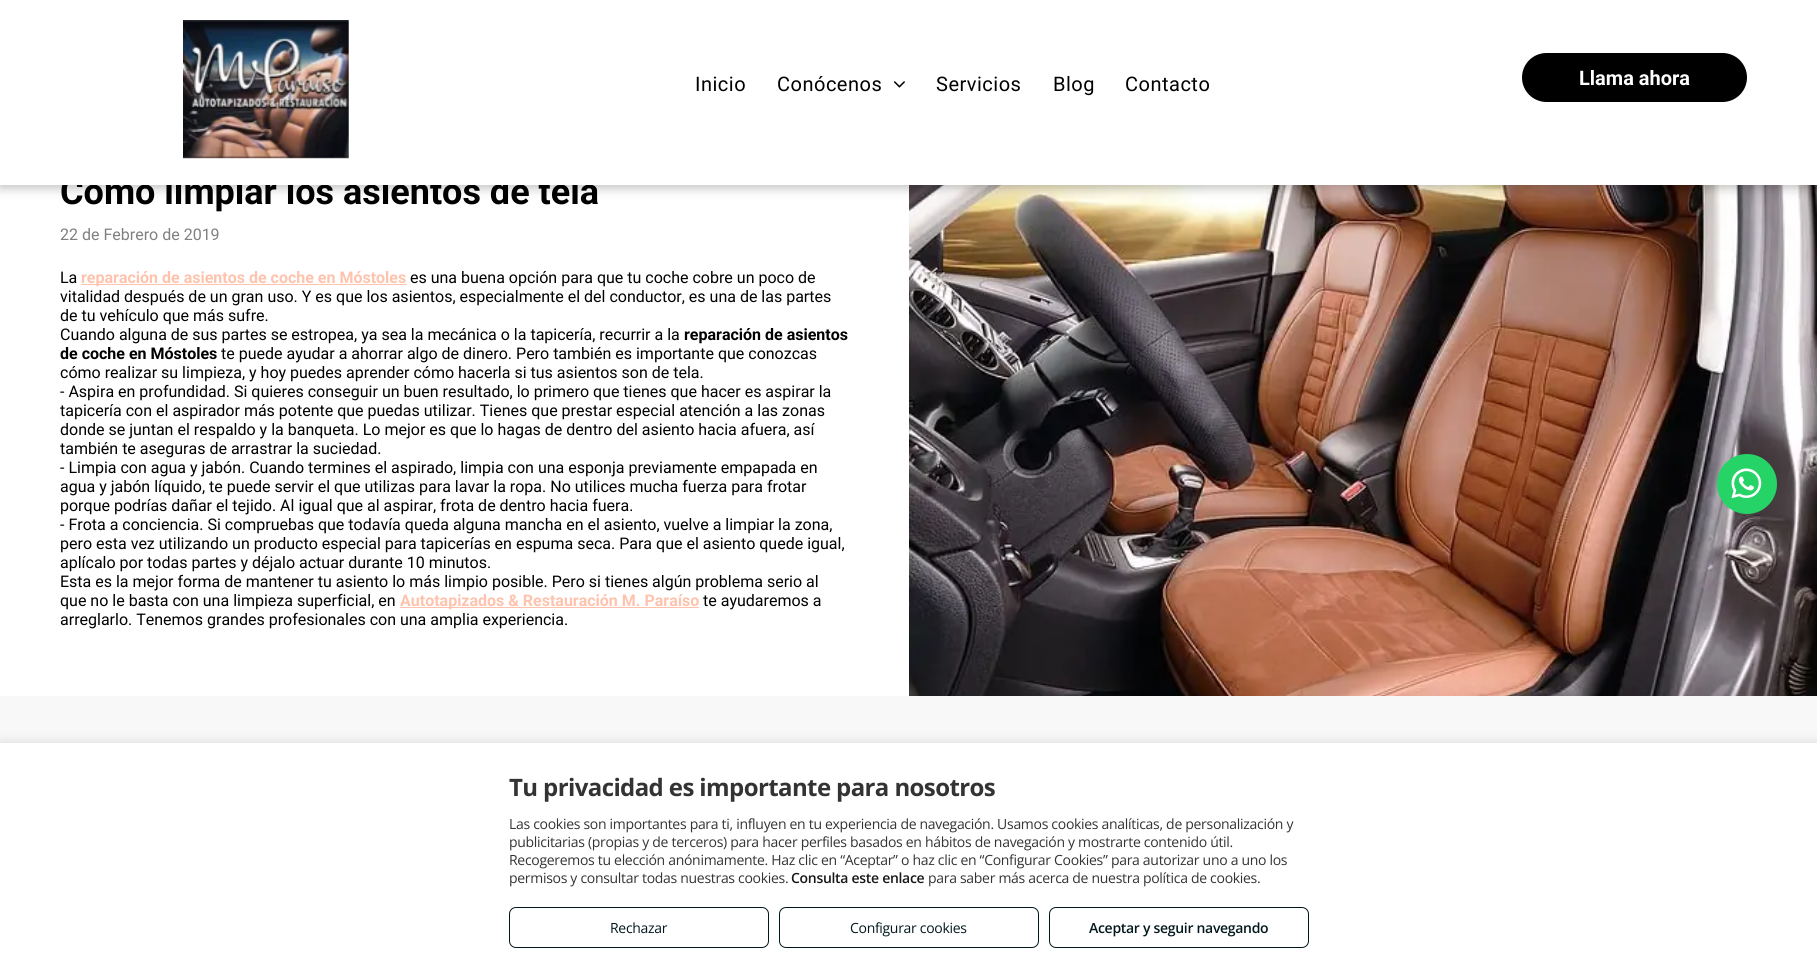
#include <cairo/cairo.h>
#include <math.h>
#include <stddef.h>

typedef struct { double x, y; const char *s; } line_t;
typedef struct { double x, y, w, h; unsigned color; } box_t;
static cairo_t *cr;

static void rgb(unsigned color)
{
	cairo_set_source_rgb(cr, (color >> 16) / 255.0, (color >> 8 & 255) / 255.0, (color & 255) / 255.0);
}

static void tracked(double x, double y, const char *s, double letter, double word)
{
	cairo_move_to(cr, x, y);
	while (*s) {
		char ch[5] = {0};
		int n = 0;
		do ch[n++] = *s++; while ((*s & 0xC0) == 0x80);
		cairo_show_text(cr, ch);
		cairo_rel_move_to(cr, letter + word * (*ch == ' '), 0);
	}
}

static void rrect(double x, double y, double w, double h, double r)
{
	cairo_new_sub_path(cr);
	cairo_arc(cr, x + w - r, y + h - r, r, 0, M_PI / 2);
	cairo_arc(cr, x + r, y + h - r, r, M_PI / 2, M_PI);
	cairo_arc(cr, x + r, y + r, r, M_PI, 1.5 * M_PI);
	cairo_arc(cr, x + w - r, y + r, r, 1.5 * M_PI, 2 * M_PI);
	cairo_close_path(cr);
}

static void soft_shadow(double x, double y, double w, double h, double r, double blur, double alpha)
{
	cairo_push_group_with_content(cr, CAIRO_CONTENT_ALPHA);
	cairo_set_operator(cr, CAIRO_OPERATOR_SOURCE);
	for (int i = 15; i >= -15 && fmin(w, h) + blur * i / 3 > 0; i -= 2) {
		double e = blur * i / 6;
		cairo_set_source_rgba(cr, 0, 0, 0, alpha * erfc((i - 1) / 8.5) / 2);
		rrect(x - e, y - e, w + 2 * e, h + 2 * e, fmax(0, fmin(r + e + blur * .6, fmin(w, h) / 2 + e)));
		cairo_fill(cr);
	}
	cairo_pattern_t *soft = cairo_pop_group(cr);
	cairo_mask(cr, soft);
	cairo_pattern_destroy(soft);
}

static void image(const char *path, double x, double y, double w, double h)
{
	cairo_surface_t *image = cairo_image_surface_create_from_png(path);
	cairo_save(cr);
	cairo_set_source_surface(cr, image, x, y);
	cairo_rectangle(cr, x, y, w, h);
	cairo_fill(cr);
	cairo_restore(cr);
	cairo_surface_destroy(image);
}

int main(void) {
	cairo_surface_t *surface = cairo_image_surface_create(CAIRO_FORMAT_RGB24, 1817, 968);
	cr = cairo_create(surface);
	cairo_font_options_t *options = cairo_font_options_create();
	cairo_font_options_set_hint_metrics(options, CAIRO_HINT_METRICS_OFF);
	cairo_font_options_set_hint_style(options, CAIRO_HINT_STYLE_NONE);
	cairo_set_font_options(cr, options);
	cairo_set_miter_limit(cr, 4);
	rgb(0xffffff);
	cairo_paint(cr);
	image("img/3.png", 909, 185, 908, 511);
	rgb(0x000000);
	soft_shadow(0, 2, 1817, 186, 0, 5.5, 0.25);
	{
		static const box_t items[] = {
			{81, 284, 326, 1, 0xffc2ac},
			{400, 607, 299, 1, 0xffc2ac},
			{0, 696, 1817, 47, 0xf8f8f8},
		};
		for (size_t i = 0; i < sizeof items / sizeof *items; i++) {
			rgb(items[i].color);
			cairo_rectangle(cr, items[i].x, items[i].y, items[i].w, items[i].h);
			cairo_fill(cr);
		}
	}
	image("img/4.png", 1717, 454, 60, 60);
	rgb(0x000000);
	soft_shadow(0, 741, 1817, 225, 0, 5, 0.1);
	rgb(0xffffff);
	cairo_rectangle(cr, 0, 743, 1817, 225);
	cairo_fill(cr);
	rrect(509.5, 907.5, 259, 40, 6.5);
	rgb(0x03181e);
	cairo_set_line_width(cr, 1);
	cairo_stroke(cr);
	rrect(779.5, 907.5, 259, 40, 6.5);
	cairo_stroke(cr);
	rrect(1049.5, 907.5, 259, 40, 6.5);
	cairo_stroke(cr);
	cairo_select_font_face(cr, "Roboto", CAIRO_FONT_SLANT_NORMAL, CAIRO_FONT_WEIGHT_BOLD);
	cairo_set_font_size(cr, 36);
	rgb(0x000000);
	cairo_move_to(cr, 60, 204);
	cairo_show_text(cr, "Como limpiar los asientos de tela");
	rgb(0xffffff);
	cairo_rectangle(cr, 0, 0, 1817, 185);
	cairo_fill(cr);
	rgb(0x000000);
	rrect(1523, 54, 223, 47, 23.5);
	cairo_fill_preserve(cr);
	cairo_set_line_width(cr, 2);
	cairo_stroke(cr);
	cairo_set_font_size(cr, 20);
	rgb(0xffffff);
	cairo_move_to(cr, 1579, 85);
	cairo_show_text(cr, "Llama ahora");
	cairo_select_font_face(cr, "Roboto", CAIRO_FONT_SLANT_NORMAL, CAIRO_FONT_WEIGHT_NORMAL);
	rgb(0x000000);
	{
		static const line_t items[] = {
			{1125, 91, "Contacto"},
			{1053, 91, "Blog"},
			{936, 91, "Servicios"},
		};
		for (size_t i = 0; i < sizeof items / sizeof *items; i++) {
			tracked(items[i].x, items[i].y, items[i].s, 0.5, 0);
		}
	}
	image("img/2.png", 893, 81, 12, 7);
	tracked(777, 91, "Conócenos", 0.5, 0);
	tracked(695, 91, "Inicio", 0.5, 0);
	image("img/1.png", 183, 20, 166, 139);
	cairo_set_font_size(cr, 16);
	rgb(0x808080);
	cairo_move_to(cr, 60, 240);
	cairo_show_text(cr, "22 de Febrero de 2019");
	rgb(0x000000);
	cairo_move_to(cr, 60, 283);
	cairo_show_text(cr, "La");
	cairo_select_font_face(cr, "Roboto", CAIRO_FONT_SLANT_NORMAL, CAIRO_FONT_WEIGHT_BOLD);
	rgb(0xffc2ac);
	cairo_move_to(cr, 81, 283);
	cairo_show_text(cr, "reparación de asientos de coche en Móstoles");
	cairo_select_font_face(cr, "Roboto", CAIRO_FONT_SLANT_NORMAL, CAIRO_FONT_WEIGHT_NORMAL);
	rgb(0x000000);
	{
		static const line_t items[] = {
			{410, 283, "es una buena opción para que tu coche cobre un poco de"},
			{60, 302, "vitalidad después de un gran uso. Y es que los asientos, especialmente el del conductor, es una de las partes"},
			{60, 321, "de tu vehículo que más sufre."},
			{60, 340, "Cuando alguna de sus partes se estropea, ya sea la mecánica o la tapicería, recurrir a la"},
		};
		for (size_t i = 0; i < sizeof items / sizeof *items; i++) {
			cairo_move_to(cr, items[i].x, items[i].y);
			cairo_show_text(cr, items[i].s);
		}
	}
	cairo_select_font_face(cr, "Roboto", CAIRO_FONT_SLANT_NORMAL, CAIRO_FONT_WEIGHT_BOLD);
	cairo_move_to(cr, 684, 340);
	cairo_show_text(cr, "reparación de asientos");
	cairo_move_to(cr, 60, 359);
	cairo_show_text(cr, "de coche en Móstoles");
	cairo_select_font_face(cr, "Roboto", CAIRO_FONT_SLANT_NORMAL, CAIRO_FONT_WEIGHT_NORMAL);
	{
		static const line_t items[] = {
			{221, 359, "te puede ayudar a ahorrar algo de dinero. Pero también es importante que conozcas"},
			{60, 378, "cómo realizar su limpieza, y hoy puedes aprender cómo hacerla si tus asientos son de tela."},
			{60, 397, "- Aspira en profundidad. Si quieres conseguir un buen resultado, lo primero que tienes que hacer es aspirar la"},
			{60, 416, "tapicería con el aspirador más potente que puedas utilizar. Tienes que prestar especial atención a las zonas"},
			{60, 435, "donde se juntan el respaldo y la banqueta. Lo mejor es que lo hagas de dentro del asiento hacia afuera, así"},
			{60, 454, "también te aseguras de arrastrar la suciedad."},
			{60, 473, "- Limpia con agua y jabón. Cuando termines el aspirado, limpia con una esponja previamente empapada en"},
			{60, 492, "agua y jabón líquido, te puede servir el que utilizas para lavar la ropa. No utilices mucha fuerza para frotar"},
			{60, 511, "porque podrías dañar el tejido. Al igual que al aspirar, frota de dentro hacia fuera."},
			{60, 530, "- Frota a conciencia. Si compruebas que todavía queda alguna mancha en el asiento, vuelve a limpiar la zona,"},
			{60, 549, "pero esta vez utilizando un producto especial para tapicerías en espuma seca. Para que el asiento quede igual,"},
			{60, 568, "aplícalo por todas partes y déjalo actuar durante 10 minutos."},
			{60, 587, "Esta es la mejor forma de mantener tu asiento lo más limpio posible. Pero si tienes algún problema serio al"},
			{60, 606, "que no le basta con una limpieza superficial, en"},
		};
		for (size_t i = 0; i < sizeof items / sizeof *items; i++) {
			cairo_move_to(cr, items[i].x, items[i].y);
			cairo_show_text(cr, items[i].s);
		}
	}
	cairo_select_font_face(cr, "Roboto", CAIRO_FONT_SLANT_NORMAL, CAIRO_FONT_WEIGHT_BOLD);
	rgb(0xffc2ac);
	cairo_move_to(cr, 400, 606);
	cairo_show_text(cr, "Autotapizados & Restauración M. Paraíso");
	cairo_select_font_face(cr, "Roboto", CAIRO_FONT_SLANT_NORMAL, CAIRO_FONT_WEIGHT_NORMAL);
	rgb(0x000000);
	cairo_move_to(cr, 703, 606);
	cairo_show_text(cr, "te ayudaremos a");
	cairo_move_to(cr, 60, 625);
	cairo_show_text(cr, "arreglarlo. Tenemos grandes profesionales con una amplia experiencia.");
	cairo_select_font_face(cr, "Open Sans", CAIRO_FONT_SLANT_NORMAL, CAIRO_FONT_WEIGHT_BOLD);
	cairo_set_font_size(cr, 24);
	rgb(0x333333);
	tracked(509, 796, "Tu privacidad es importante para nosotros", -0.6, 0);
	cairo_select_font_face(cr, "Open Sans", CAIRO_FONT_SLANT_NORMAL, CAIRO_FONT_WEIGHT_NORMAL);
	cairo_set_font_size(cr, 14);
	{
		static const line_t items[] = {
			{509, 829, "Las cookies son importantes para ti, influyen en tu experiencia de navegación. Usamos cookies analíticas, de personalización y"},
			{509, 847, "publicitarias (propias y de terceros) para hacer perfiles basados en hábitos de navegación y mostrarte contenido útil."},
			{509, 865, "Recogeremos tu elección anónimamente. Haz clic en “Aceptar” o haz clic en “Configurar Cookies” para autorizar uno a uno los"},
			{509, 883, "permisos y consultar todas nuestras cookies."},
		};
		for (size_t i = 0; i < sizeof items / sizeof *items; i++) {
			tracked(items[i].x, items[i].y, items[i].s, -0.3, 0);
		}
	}
	cairo_select_font_face(cr, "Open Sans SemiBold", CAIRO_FONT_SLANT_NORMAL, CAIRO_FONT_WEIGHT_NORMAL);
	rgb(0x171717);
	tracked(791, 883, "Consulta este enlace", -0.3, 0);
	cairo_select_font_face(cr, "Open Sans", CAIRO_FONT_SLANT_NORMAL, CAIRO_FONT_WEIGHT_NORMAL);
	rgb(0x333333);
	tracked(928, 883, "para saber más acerca de nuestra política de cookies.", -0.3, 0);
	rgb(0x03181e);
	tracked(610, 933, "Rechazar", -0.3, 0);
	tracked(850, 933, "Configurar cookies", -0.3, 0);
	cairo_select_font_face(cr, "Open Sans SemiBold", CAIRO_FONT_SLANT_NORMAL, CAIRO_FONT_WEIGHT_NORMAL);
	tracked(1089, 933, "Aceptar y seguir navegando", -0.3, 0);
	cairo_surface_write_to_png(surface, "page.png");
	cairo_font_options_destroy(options);
	cairo_destroy(cr);
	cairo_surface_destroy(surface);
	return 0;
}
